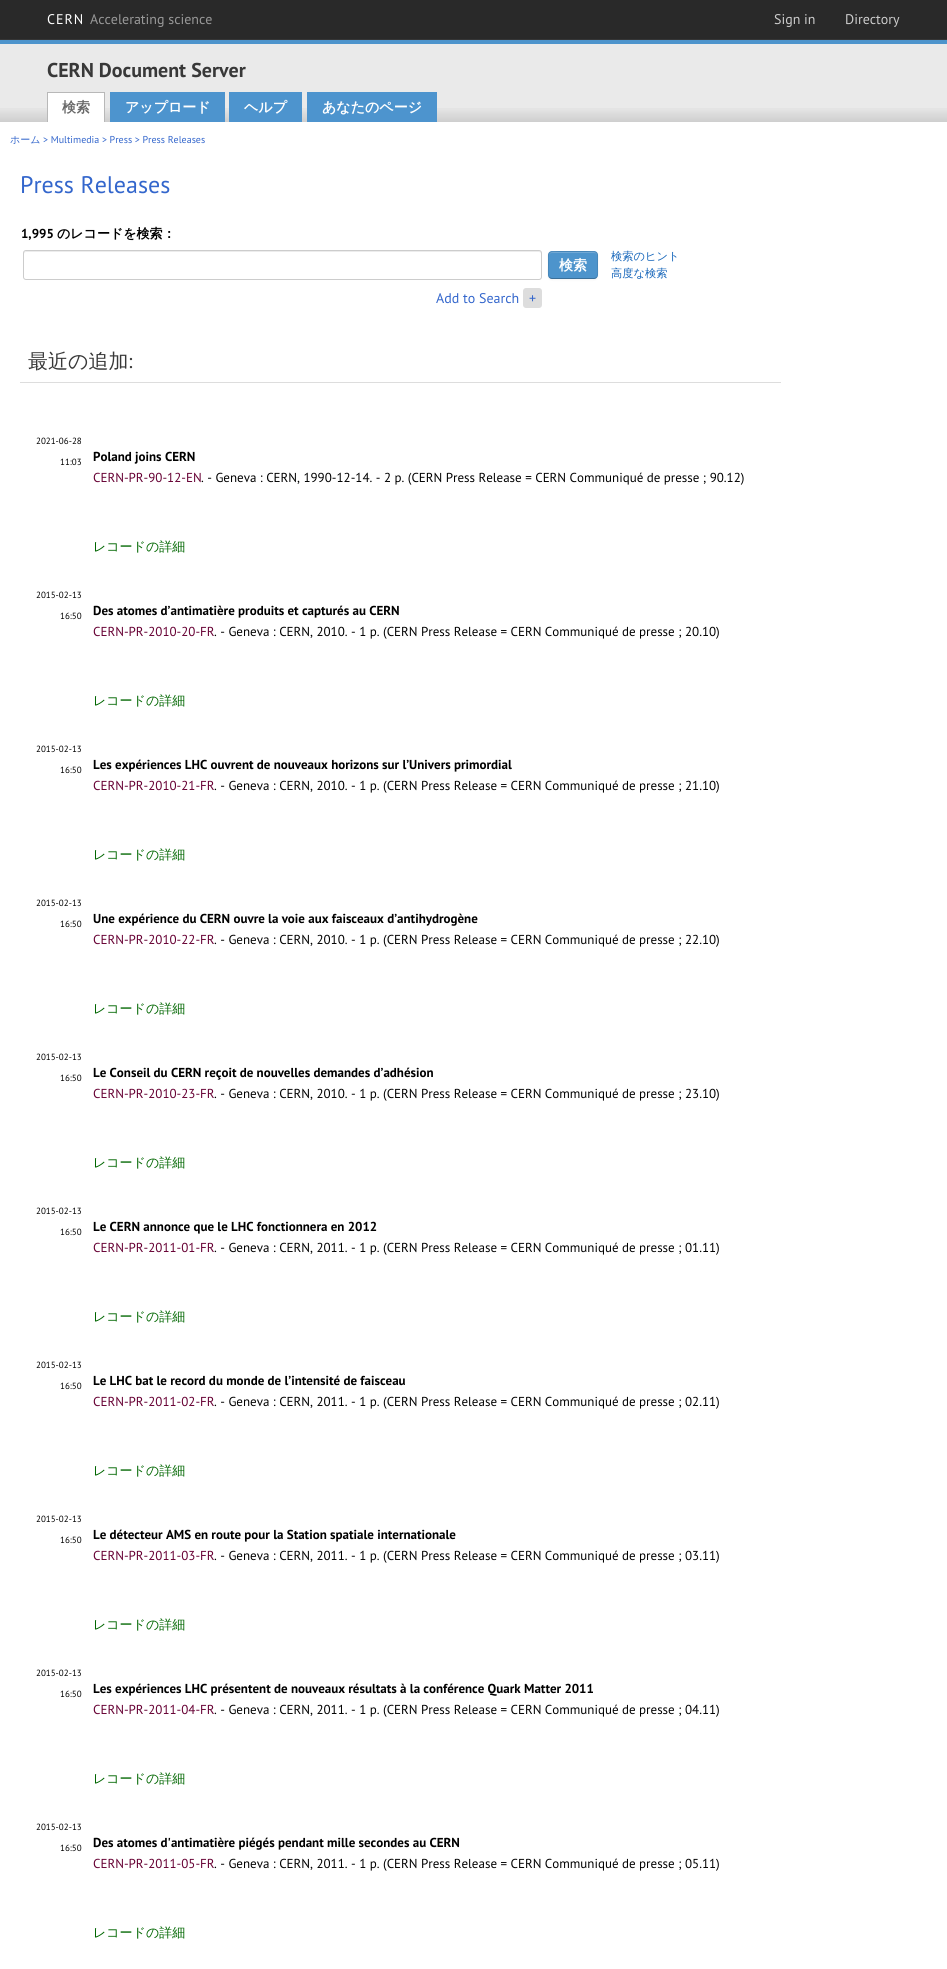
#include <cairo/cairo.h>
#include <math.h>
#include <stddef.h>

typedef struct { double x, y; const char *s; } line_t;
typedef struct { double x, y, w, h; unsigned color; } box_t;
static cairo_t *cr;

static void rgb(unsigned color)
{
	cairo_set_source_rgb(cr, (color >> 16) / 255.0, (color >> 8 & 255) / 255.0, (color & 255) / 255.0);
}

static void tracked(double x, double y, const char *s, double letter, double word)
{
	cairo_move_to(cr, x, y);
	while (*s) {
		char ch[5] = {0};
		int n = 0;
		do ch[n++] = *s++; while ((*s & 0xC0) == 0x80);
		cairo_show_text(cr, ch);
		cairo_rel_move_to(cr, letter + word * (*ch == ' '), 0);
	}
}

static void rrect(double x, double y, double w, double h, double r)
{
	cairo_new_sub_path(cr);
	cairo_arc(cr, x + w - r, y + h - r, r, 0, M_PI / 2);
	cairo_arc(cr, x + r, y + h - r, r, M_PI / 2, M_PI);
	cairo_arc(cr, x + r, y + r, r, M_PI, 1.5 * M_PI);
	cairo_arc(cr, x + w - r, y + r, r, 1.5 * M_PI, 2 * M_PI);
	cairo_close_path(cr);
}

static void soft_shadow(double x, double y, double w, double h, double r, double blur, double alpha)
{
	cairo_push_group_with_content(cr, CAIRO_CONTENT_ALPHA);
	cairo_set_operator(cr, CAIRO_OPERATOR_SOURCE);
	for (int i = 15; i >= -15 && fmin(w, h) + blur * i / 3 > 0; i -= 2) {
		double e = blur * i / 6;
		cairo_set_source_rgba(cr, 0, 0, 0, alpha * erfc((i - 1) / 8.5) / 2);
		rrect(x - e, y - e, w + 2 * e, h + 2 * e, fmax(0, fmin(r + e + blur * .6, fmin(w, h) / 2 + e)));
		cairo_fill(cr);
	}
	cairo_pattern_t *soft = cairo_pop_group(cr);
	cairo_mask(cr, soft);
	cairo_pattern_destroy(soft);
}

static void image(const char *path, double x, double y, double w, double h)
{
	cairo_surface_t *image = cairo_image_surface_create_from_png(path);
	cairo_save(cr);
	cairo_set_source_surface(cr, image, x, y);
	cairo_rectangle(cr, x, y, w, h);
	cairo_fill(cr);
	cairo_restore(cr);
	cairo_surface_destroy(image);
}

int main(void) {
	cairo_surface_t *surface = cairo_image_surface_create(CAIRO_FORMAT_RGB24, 947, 1969);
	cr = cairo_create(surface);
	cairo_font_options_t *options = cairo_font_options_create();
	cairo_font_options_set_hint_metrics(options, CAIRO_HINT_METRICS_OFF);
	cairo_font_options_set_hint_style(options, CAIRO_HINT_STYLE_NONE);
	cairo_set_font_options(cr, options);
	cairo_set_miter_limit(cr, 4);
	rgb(0xffffff);
	cairo_paint(cr);
	{
		static const box_t items[] = {
			{0, 0, 947, 39, 0x292929},
			{0, 39, 947, 1, 0x353535},
			{0, 44, 947, 78, 0xeaeaea},
		};
		for (size_t i = 0; i < sizeof items / sizeof *items; i++) {
			rgb(items[i].color);
			cairo_rectangle(cr, items[i].x, items[i].y, items[i].w, items[i].h);
			cairo_fill(cr);
		}
	}
	image("img/1.png", 0, 108, 947, 14);
	{
		static const box_t items[] = {
			{0, 40, 947, 4, 0x4d94cc},
			{48, 93, 56, 29, 0xffffff},
			{47, 92, 58, 1, 0xb8b8b8},
			{104, 92, 1, 30, 0xb8b8b8},
			{47, 92, 1, 30, 0xb8b8b8},
			{110, 92, 115, 30, 0x4d94ce},
			{229, 92, 73, 30, 0x4d94ce},
			{307, 92, 130, 30, 0x4d94ce},
		};
		for (size_t i = 0; i < sizeof items / sizeof *items; i++) {
			rgb(items[i].color);
			cairo_rectangle(cr, items[i].x, items[i].y, items[i].w, items[i].h);
			cairo_fill(cr);
		}
	}
	rgb(0xececec);
	cairo_new_path(cr);
	cairo_move_to(cr, 26, 252);
	cairo_line_to(cr, 539, 252);
	cairo_curve_to(cr, 540, 252, 541, 253, 541, 254);
	cairo_curve_to(cr, 541, 253, 541, 251, 539, 251);
	cairo_line_to(cr, 26, 251);
	cairo_line_to(cr, 24, 252);
	cairo_line_to(cr, 24, 254);
	cairo_curve_to(cr, 24, 253, 25, 252, 26, 252);
	cairo_close_path(cr);
	cairo_fill(cr);
	rrect(23.5, 250.5, 518, 29, 2.5);
	rgb(0xcccccc);
	cairo_set_line_width(cr, 1);
	cairo_stroke(cr);
	rgb(0x000000);
	soft_shadow(548, 252, 50, 28, 4, 1, 0.05);
	rgb(0x4d94cc);
	rrect(548, 251, 50, 28, 4);
	cairo_fill(cr);
	rgb(0x71a9d6);
	cairo_new_path(cr);
	cairo_move_to(cr, 552, 253);
	cairo_line_to(cr, 594, 253);
	cairo_curve_to(cr, 596, 253, 597, 254, 597, 256);
	cairo_curve_to(cr, 597, 250, 591, 252, 587, 252);
	cairo_line_to(cr, 559, 252);
	cairo_curve_to(cr, 555, 252, 549, 250, 549, 256);
	cairo_curve_to(cr, 549, 254, 550, 253, 552, 253);
	cairo_close_path(cr);
	cairo_fill(cr);
	cairo_new_path(cr);
	cairo_move_to(cr, 596.5, 277.5);
	cairo_curve_to(cr, 596, 278, 595, 278.5, 594, 278.5);
	cairo_line_to(cr, 552, 278.5);
	cairo_curve_to(cr, 551, 278.5, 550, 278, 549.5, 277.5);
	cairo_set_source_rgba(cr, 0, 0, 0, 0.25);
	cairo_stroke(cr);
	cairo_new_path(cr);
	cairo_move_to(cr, 549.5, 277.5);
	cairo_curve_to(cr, 547.5, 275, 548.5, 267.5, 548.5, 265);
	cairo_curve_to(cr, 548.5, 252, 546, 251.5, 559, 251.5);
	cairo_line_to(cr, 587, 251.5);
	cairo_curve_to(cr, 600, 251.5, 597.5, 252, 597.5, 265);
	cairo_curve_to(cr, 597.5, 267.5, 598.5, 275, 596.5, 277.5);
	cairo_set_source_rgba(cr, 0, 0, 0, 0.1);
	cairo_stroke(cr);
	rgb(0xdddddd);
	rrect(523, 288, 19, 20, 3);
	cairo_fill(cr);
	cairo_rectangle(cr, 20, 382, 761, 1);
	cairo_fill(cr);
	cairo_select_font_face(cr, "PT Sans", CAIRO_FONT_SLANT_NORMAL, CAIRO_FONT_WEIGHT_NORMAL);
	cairo_set_font_size(cr, 14);
	rgb(0xffffff);
	tracked(47, 24, "CERN", 1, 0);
	rgb(0x999999);
	cairo_move_to(cr, 90, 24);
	cairo_show_text(cr, "Accelerating science");
	rgb(0xcccccc);
	cairo_move_to(cr, 774, 24);
	cairo_show_text(cr, "Sign in");
	cairo_move_to(cr, 845, 24);
	cairo_show_text(cr, "Directory");
	cairo_select_font_face(cr, "PT Sans", CAIRO_FONT_SLANT_NORMAL, CAIRO_FONT_WEIGHT_BOLD);
	cairo_set_font_size(cr, 20);
	rgb(0x383838);
	cairo_move_to(cr, 47, 77);
	cairo_show_text(cr, "CERN Document Server");
	cairo_select_font_face(cr, "WenQuanYi Zen Hei", CAIRO_FONT_SLANT_NORMAL, CAIRO_FONT_WEIGHT_BOLD);
	cairo_set_font_size(cr, 14);
	rgb(0x686868);
	cairo_move_to(cr, 62, 112);
	cairo_show_text(cr, "検索");
	rgb(0xffffff);
	{
		static const line_t items[] = {
			{125, 112, "アップロード"},
			{244, 112, "ヘルプ"},
			{322, 112, "あなたのページ"},
		};
		for (size_t i = 0; i < sizeof items / sizeof *items; i++) {
			cairo_move_to(cr, items[i].x, items[i].y);
			cairo_show_text(cr, items[i].s);
		}
	}
	cairo_select_font_face(cr, "WenQuanYi Zen Hei Medium", CAIRO_FONT_SLANT_NORMAL, CAIRO_FONT_WEIGHT_NORMAL);
	cairo_set_font_size(cr, 10);
	rgb(0x3366cc);
	cairo_move_to(cr, 10, 143);
	cairo_show_text(cr, "ホーム");
	cairo_select_font_face(cr, "PT Sans", CAIRO_FONT_SLANT_NORMAL, CAIRO_FONT_WEIGHT_NORMAL);
	cairo_move_to(cr, 43, 143);
	cairo_show_text(cr, "> Multimedia > Press > Press Releases");
	cairo_set_font_size(cr, 24);
	cairo_move_to(cr, 20, 193);
	cairo_show_text(cr, "Press Releases");
	cairo_select_font_face(cr, "PT Sans", CAIRO_FONT_SLANT_NORMAL, CAIRO_FONT_WEIGHT_BOLD);
	cairo_set_font_size(cr, 13);
	rgb(0x000000);
	cairo_move_to(cr, 21, 238);
	cairo_show_text(cr, "1,995");
	cairo_select_font_face(cr, "WenQuanYi Zen Hei", CAIRO_FONT_SLANT_NORMAL, CAIRO_FONT_WEIGHT_BOLD);
	cairo_move_to(cr, 57, 238);
	cairo_show_text(cr, "のレコードを検索：");
	cairo_set_font_size(cr, 14);
	rgb(0xffffff);
	cairo_move_to(cr, 559, 270);
	cairo_show_text(cr, "検索");
	cairo_select_font_face(cr, "WenQuanYi Zen Hei Medium", CAIRO_FONT_SLANT_NORMAL, CAIRO_FONT_WEIGHT_NORMAL);
	cairo_set_font_size(cr, 11.25);
	rgb(0x1565ba);
	cairo_move_to(cr, 611, 260);
	cairo_show_text(cr, "検索のヒント");
	cairo_move_to(cr, 611, 277);
	cairo_show_text(cr, "高度な検索");
	cairo_select_font_face(cr, "PT Sans", CAIRO_FONT_SLANT_NORMAL, CAIRO_FONT_WEIGHT_NORMAL);
	cairo_set_font_size(cr, 14);
	rgb(0x3366cc);
	cairo_move_to(cr, 436, 303);
	cairo_show_text(cr, "Add to Search");
	cairo_move_to(cr, 529, 303);
	cairo_show_text(cr, "+");
	cairo_select_font_face(cr, "WenQuanYi Zen Hei Medium", CAIRO_FONT_SLANT_NORMAL, CAIRO_FONT_WEIGHT_NORMAL);
	cairo_set_font_size(cr, 20);
	rgb(0x383838);
	cairo_move_to(cr, 28, 368);
	cairo_show_text(cr, "最近の追加");
	cairo_select_font_face(cr, "PT Sans", CAIRO_FONT_SLANT_NORMAL, CAIRO_FONT_WEIGHT_NORMAL);
	cairo_move_to(cr, 128, 368);
	cairo_show_text(cr, ":");
	cairo_set_font_size(cr, 9);
	rgb(0x000000);
	cairo_move_to(cr, 36, 444);
	cairo_show_text(cr, "2021-06-28");
	cairo_move_to(cr, 60, 465);
	cairo_show_text(cr, "11:03");
	cairo_select_font_face(cr, "PT Sans", CAIRO_FONT_SLANT_NORMAL, CAIRO_FONT_WEIGHT_BOLD);
	cairo_set_font_size(cr, 13);
	cairo_move_to(cr, 93, 461);
	cairo_show_text(cr, "Poland joins CERN");
	cairo_select_font_face(cr, "PT Sans", CAIRO_FONT_SLANT_NORMAL, CAIRO_FONT_WEIGHT_NORMAL);
	rgb(0x660033);
	cairo_move_to(cr, 93, 482);
	cairo_show_text(cr, "CERN-PR-90-12-EN");
	rgb(0x000000);
	cairo_move_to(cr, 201, 482);
	cairo_show_text(cr, ". - Geneva : CERN, 1990-12-14. - 2 p. (CERN Press Release = CERN Communiqué de presse ; 90.12)");
	cairo_select_font_face(cr, "WenQuanYi Zen Hei Medium", CAIRO_FONT_SLANT_NORMAL, CAIRO_FONT_WEIGHT_NORMAL);
	rgb(0x006600);
	cairo_move_to(cr, 93, 551);
	cairo_show_text(cr, "レコードの詳細");
	cairo_select_font_face(cr, "PT Sans", CAIRO_FONT_SLANT_NORMAL, CAIRO_FONT_WEIGHT_NORMAL);
	cairo_set_font_size(cr, 9);
	rgb(0x000000);
	cairo_move_to(cr, 36, 598);
	cairo_show_text(cr, "2015-02-13");
	cairo_move_to(cr, 60, 619);
	cairo_show_text(cr, "16:50");
	cairo_select_font_face(cr, "PT Sans", CAIRO_FONT_SLANT_NORMAL, CAIRO_FONT_WEIGHT_BOLD);
	cairo_set_font_size(cr, 13);
	cairo_move_to(cr, 93, 615);
	cairo_show_text(cr, "Des atomes d’antimatière produits et capturés au CERN");
	cairo_select_font_face(cr, "PT Sans", CAIRO_FONT_SLANT_NORMAL, CAIRO_FONT_WEIGHT_NORMAL);
	rgb(0x660033);
	cairo_move_to(cr, 93, 636);
	cairo_show_text(cr, "CERN-PR-2010-20-FR");
	rgb(0x000000);
	cairo_move_to(cr, 214, 636);
	cairo_show_text(cr, ". - Geneva : CERN, 2010. - 1 p. (CERN Press Release = CERN Communiqué de presse ; 20.10)");
	cairo_select_font_face(cr, "WenQuanYi Zen Hei Medium", CAIRO_FONT_SLANT_NORMAL, CAIRO_FONT_WEIGHT_NORMAL);
	rgb(0x006600);
	cairo_move_to(cr, 93, 705);
	cairo_show_text(cr, "レコードの詳細");
	cairo_select_font_face(cr, "PT Sans", CAIRO_FONT_SLANT_NORMAL, CAIRO_FONT_WEIGHT_NORMAL);
	cairo_set_font_size(cr, 9);
	rgb(0x000000);
	cairo_move_to(cr, 36, 752);
	cairo_show_text(cr, "2015-02-13");
	cairo_move_to(cr, 60, 773);
	cairo_show_text(cr, "16:50");
	cairo_select_font_face(cr, "PT Sans", CAIRO_FONT_SLANT_NORMAL, CAIRO_FONT_WEIGHT_BOLD);
	cairo_set_font_size(cr, 13);
	cairo_move_to(cr, 93, 769);
	cairo_show_text(cr, "Les expériences LHC ouvrent de nouveaux horizons sur l’Univers primordial");
	cairo_select_font_face(cr, "PT Sans", CAIRO_FONT_SLANT_NORMAL, CAIRO_FONT_WEIGHT_NORMAL);
	rgb(0x660033);
	cairo_move_to(cr, 93, 790);
	cairo_show_text(cr, "CERN-PR-2010-21-FR");
	rgb(0x000000);
	cairo_move_to(cr, 214, 790);
	cairo_show_text(cr, ". - Geneva : CERN, 2010. - 1 p. (CERN Press Release = CERN Communiqué de presse ; 21.10)");
	cairo_select_font_face(cr, "WenQuanYi Zen Hei Medium", CAIRO_FONT_SLANT_NORMAL, CAIRO_FONT_WEIGHT_NORMAL);
	rgb(0x006600);
	cairo_move_to(cr, 93, 859);
	cairo_show_text(cr, "レコードの詳細");
	cairo_select_font_face(cr, "PT Sans", CAIRO_FONT_SLANT_NORMAL, CAIRO_FONT_WEIGHT_NORMAL);
	cairo_set_font_size(cr, 9);
	rgb(0x000000);
	cairo_move_to(cr, 36, 906);
	cairo_show_text(cr, "2015-02-13");
	cairo_move_to(cr, 60, 927);
	cairo_show_text(cr, "16:50");
	cairo_select_font_face(cr, "PT Sans", CAIRO_FONT_SLANT_NORMAL, CAIRO_FONT_WEIGHT_BOLD);
	cairo_set_font_size(cr, 13);
	cairo_move_to(cr, 93, 923);
	cairo_show_text(cr, "Une expérience du CERN ouvre la voie aux faisceaux d’antihydrogène");
	cairo_select_font_face(cr, "PT Sans", CAIRO_FONT_SLANT_NORMAL, CAIRO_FONT_WEIGHT_NORMAL);
	rgb(0x660033);
	cairo_move_to(cr, 93, 944);
	cairo_show_text(cr, "CERN-PR-2010-22-FR");
	rgb(0x000000);
	cairo_move_to(cr, 214, 944);
	cairo_show_text(cr, ". - Geneva : CERN, 2010. - 1 p. (CERN Press Release = CERN Communiqué de presse ; 22.10)");
	cairo_select_font_face(cr, "WenQuanYi Zen Hei Medium", CAIRO_FONT_SLANT_NORMAL, CAIRO_FONT_WEIGHT_NORMAL);
	rgb(0x006600);
	cairo_move_to(cr, 93, 1013);
	cairo_show_text(cr, "レコードの詳細");
	cairo_select_font_face(cr, "PT Sans", CAIRO_FONT_SLANT_NORMAL, CAIRO_FONT_WEIGHT_NORMAL);
	cairo_set_font_size(cr, 9);
	rgb(0x000000);
	cairo_move_to(cr, 36, 1060);
	cairo_show_text(cr, "2015-02-13");
	cairo_move_to(cr, 60, 1081);
	cairo_show_text(cr, "16:50");
	cairo_select_font_face(cr, "PT Sans", CAIRO_FONT_SLANT_NORMAL, CAIRO_FONT_WEIGHT_BOLD);
	cairo_set_font_size(cr, 13);
	cairo_move_to(cr, 93, 1077);
	cairo_show_text(cr, "Le Conseil du CERN reçoit de nouvelles demandes d’adhésion");
	cairo_select_font_face(cr, "PT Sans", CAIRO_FONT_SLANT_NORMAL, CAIRO_FONT_WEIGHT_NORMAL);
	rgb(0x660033);
	cairo_move_to(cr, 93, 1098);
	cairo_show_text(cr, "CERN-PR-2010-23-FR");
	rgb(0x000000);
	cairo_move_to(cr, 214, 1098);
	cairo_show_text(cr, ". - Geneva : CERN, 2010. - 1 p. (CERN Press Release = CERN Communiqué de presse ; 23.10)");
	cairo_select_font_face(cr, "WenQuanYi Zen Hei Medium", CAIRO_FONT_SLANT_NORMAL, CAIRO_FONT_WEIGHT_NORMAL);
	rgb(0x006600);
	cairo_move_to(cr, 93, 1167);
	cairo_show_text(cr, "レコードの詳細");
	cairo_select_font_face(cr, "PT Sans", CAIRO_FONT_SLANT_NORMAL, CAIRO_FONT_WEIGHT_NORMAL);
	cairo_set_font_size(cr, 9);
	rgb(0x000000);
	cairo_move_to(cr, 36, 1214);
	cairo_show_text(cr, "2015-02-13");
	cairo_move_to(cr, 60, 1235);
	cairo_show_text(cr, "16:50");
	cairo_select_font_face(cr, "PT Sans", CAIRO_FONT_SLANT_NORMAL, CAIRO_FONT_WEIGHT_BOLD);
	cairo_set_font_size(cr, 13);
	cairo_move_to(cr, 93, 1231);
	cairo_show_text(cr, "Le CERN annonce que le LHC fonctionnera en 2012");
	cairo_select_font_face(cr, "PT Sans", CAIRO_FONT_SLANT_NORMAL, CAIRO_FONT_WEIGHT_NORMAL);
	rgb(0x660033);
	cairo_move_to(cr, 93, 1252);
	cairo_show_text(cr, "CERN-PR-2011-01-FR");
	rgb(0x000000);
	cairo_move_to(cr, 214, 1252);
	cairo_show_text(cr, ". - Geneva : CERN, 2011. - 1 p. (CERN Press Release = CERN Communiqué de presse ; 01.11)");
	cairo_select_font_face(cr, "WenQuanYi Zen Hei Medium", CAIRO_FONT_SLANT_NORMAL, CAIRO_FONT_WEIGHT_NORMAL);
	rgb(0x006600);
	cairo_move_to(cr, 93, 1321);
	cairo_show_text(cr, "レコードの詳細");
	cairo_select_font_face(cr, "PT Sans", CAIRO_FONT_SLANT_NORMAL, CAIRO_FONT_WEIGHT_NORMAL);
	cairo_set_font_size(cr, 9);
	rgb(0x000000);
	cairo_move_to(cr, 36, 1368);
	cairo_show_text(cr, "2015-02-13");
	cairo_move_to(cr, 60, 1389);
	cairo_show_text(cr, "16:50");
	cairo_select_font_face(cr, "PT Sans", CAIRO_FONT_SLANT_NORMAL, CAIRO_FONT_WEIGHT_BOLD);
	cairo_set_font_size(cr, 13);
	cairo_move_to(cr, 93, 1385);
	cairo_show_text(cr, "Le LHC bat le record du monde de l’intensité de faisceau");
	cairo_select_font_face(cr, "PT Sans", CAIRO_FONT_SLANT_NORMAL, CAIRO_FONT_WEIGHT_NORMAL);
	rgb(0x660033);
	cairo_move_to(cr, 93, 1406);
	cairo_show_text(cr, "CERN-PR-2011-02-FR");
	rgb(0x000000);
	cairo_move_to(cr, 214, 1406);
	cairo_show_text(cr, ". - Geneva : CERN, 2011. - 1 p. (CERN Press Release = CERN Communiqué de presse ; 02.11)");
	cairo_select_font_face(cr, "WenQuanYi Zen Hei Medium", CAIRO_FONT_SLANT_NORMAL, CAIRO_FONT_WEIGHT_NORMAL);
	rgb(0x006600);
	cairo_move_to(cr, 93, 1475);
	cairo_show_text(cr, "レコードの詳細");
	cairo_select_font_face(cr, "PT Sans", CAIRO_FONT_SLANT_NORMAL, CAIRO_FONT_WEIGHT_NORMAL);
	cairo_set_font_size(cr, 9);
	rgb(0x000000);
	cairo_move_to(cr, 36, 1522);
	cairo_show_text(cr, "2015-02-13");
	cairo_move_to(cr, 60, 1543);
	cairo_show_text(cr, "16:50");
	cairo_select_font_face(cr, "PT Sans", CAIRO_FONT_SLANT_NORMAL, CAIRO_FONT_WEIGHT_BOLD);
	cairo_set_font_size(cr, 13);
	cairo_move_to(cr, 93, 1539);
	cairo_show_text(cr, "Le détecteur AMS en route pour la Station spatiale internationale");
	cairo_select_font_face(cr, "PT Sans", CAIRO_FONT_SLANT_NORMAL, CAIRO_FONT_WEIGHT_NORMAL);
	rgb(0x660033);
	cairo_move_to(cr, 93, 1560);
	cairo_show_text(cr, "CERN-PR-2011-03-FR");
	rgb(0x000000);
	cairo_move_to(cr, 214, 1560);
	cairo_show_text(cr, ". - Geneva : CERN, 2011. - 1 p. (CERN Press Release = CERN Communiqué de presse ; 03.11)");
	cairo_select_font_face(cr, "WenQuanYi Zen Hei Medium", CAIRO_FONT_SLANT_NORMAL, CAIRO_FONT_WEIGHT_NORMAL);
	rgb(0x006600);
	cairo_move_to(cr, 93, 1629);
	cairo_show_text(cr, "レコードの詳細");
	cairo_select_font_face(cr, "PT Sans", CAIRO_FONT_SLANT_NORMAL, CAIRO_FONT_WEIGHT_NORMAL);
	cairo_set_font_size(cr, 9);
	rgb(0x000000);
	cairo_move_to(cr, 36, 1676);
	cairo_show_text(cr, "2015-02-13");
	cairo_move_to(cr, 60, 1697);
	cairo_show_text(cr, "16:50");
	cairo_select_font_face(cr, "PT Sans", CAIRO_FONT_SLANT_NORMAL, CAIRO_FONT_WEIGHT_BOLD);
	cairo_set_font_size(cr, 13);
	cairo_move_to(cr, 93, 1693);
	cairo_show_text(cr, "Les expériences LHC présentent de nouveaux résultats à la conférence Quark Matter 2011");
	cairo_select_font_face(cr, "PT Sans", CAIRO_FONT_SLANT_NORMAL, CAIRO_FONT_WEIGHT_NORMAL);
	rgb(0x660033);
	cairo_move_to(cr, 93, 1714);
	cairo_show_text(cr, "CERN-PR-2011-04-FR");
	rgb(0x000000);
	cairo_move_to(cr, 214, 1714);
	cairo_show_text(cr, ". - Geneva : CERN, 2011. - 1 p. (CERN Press Release = CERN Communiqué de presse ; 04.11)");
	cairo_select_font_face(cr, "WenQuanYi Zen Hei Medium", CAIRO_FONT_SLANT_NORMAL, CAIRO_FONT_WEIGHT_NORMAL);
	rgb(0x006600);
	cairo_move_to(cr, 93, 1783);
	cairo_show_text(cr, "レコードの詳細");
	cairo_select_font_face(cr, "PT Sans", CAIRO_FONT_SLANT_NORMAL, CAIRO_FONT_WEIGHT_NORMAL);
	cairo_set_font_size(cr, 9);
	rgb(0x000000);
	cairo_move_to(cr, 36, 1830);
	cairo_show_text(cr, "2015-02-13");
	cairo_move_to(cr, 60, 1851);
	cairo_show_text(cr, "16:50");
	cairo_select_font_face(cr, "PT Sans", CAIRO_FONT_SLANT_NORMAL, CAIRO_FONT_WEIGHT_BOLD);
	cairo_set_font_size(cr, 13);
	cairo_move_to(cr, 93, 1847);
	cairo_show_text(cr, "Des atomes d'antimatière piégés pendant mille secondes au CERN");
	cairo_select_font_face(cr, "PT Sans", CAIRO_FONT_SLANT_NORMAL, CAIRO_FONT_WEIGHT_NORMAL);
	rgb(0x660033);
	cairo_move_to(cr, 93, 1868);
	cairo_show_text(cr, "CERN-PR-2011-05-FR");
	rgb(0x000000);
	cairo_move_to(cr, 214, 1868);
	cairo_show_text(cr, ". - Geneva : CERN, 2011. - 1 p. (CERN Press Release = CERN Communiqué de presse ; 05.11)");
	cairo_select_font_face(cr, "WenQuanYi Zen Hei Medium", CAIRO_FONT_SLANT_NORMAL, CAIRO_FONT_WEIGHT_NORMAL);
	rgb(0x006600);
	cairo_move_to(cr, 93, 1937);
	cairo_show_text(cr, "レコードの詳細");
	cairo_surface_write_to_png(surface, "page.png");
	cairo_font_options_destroy(options);
	cairo_destroy(cr);
	cairo_surface_destroy(surface);
	return 0;
}
